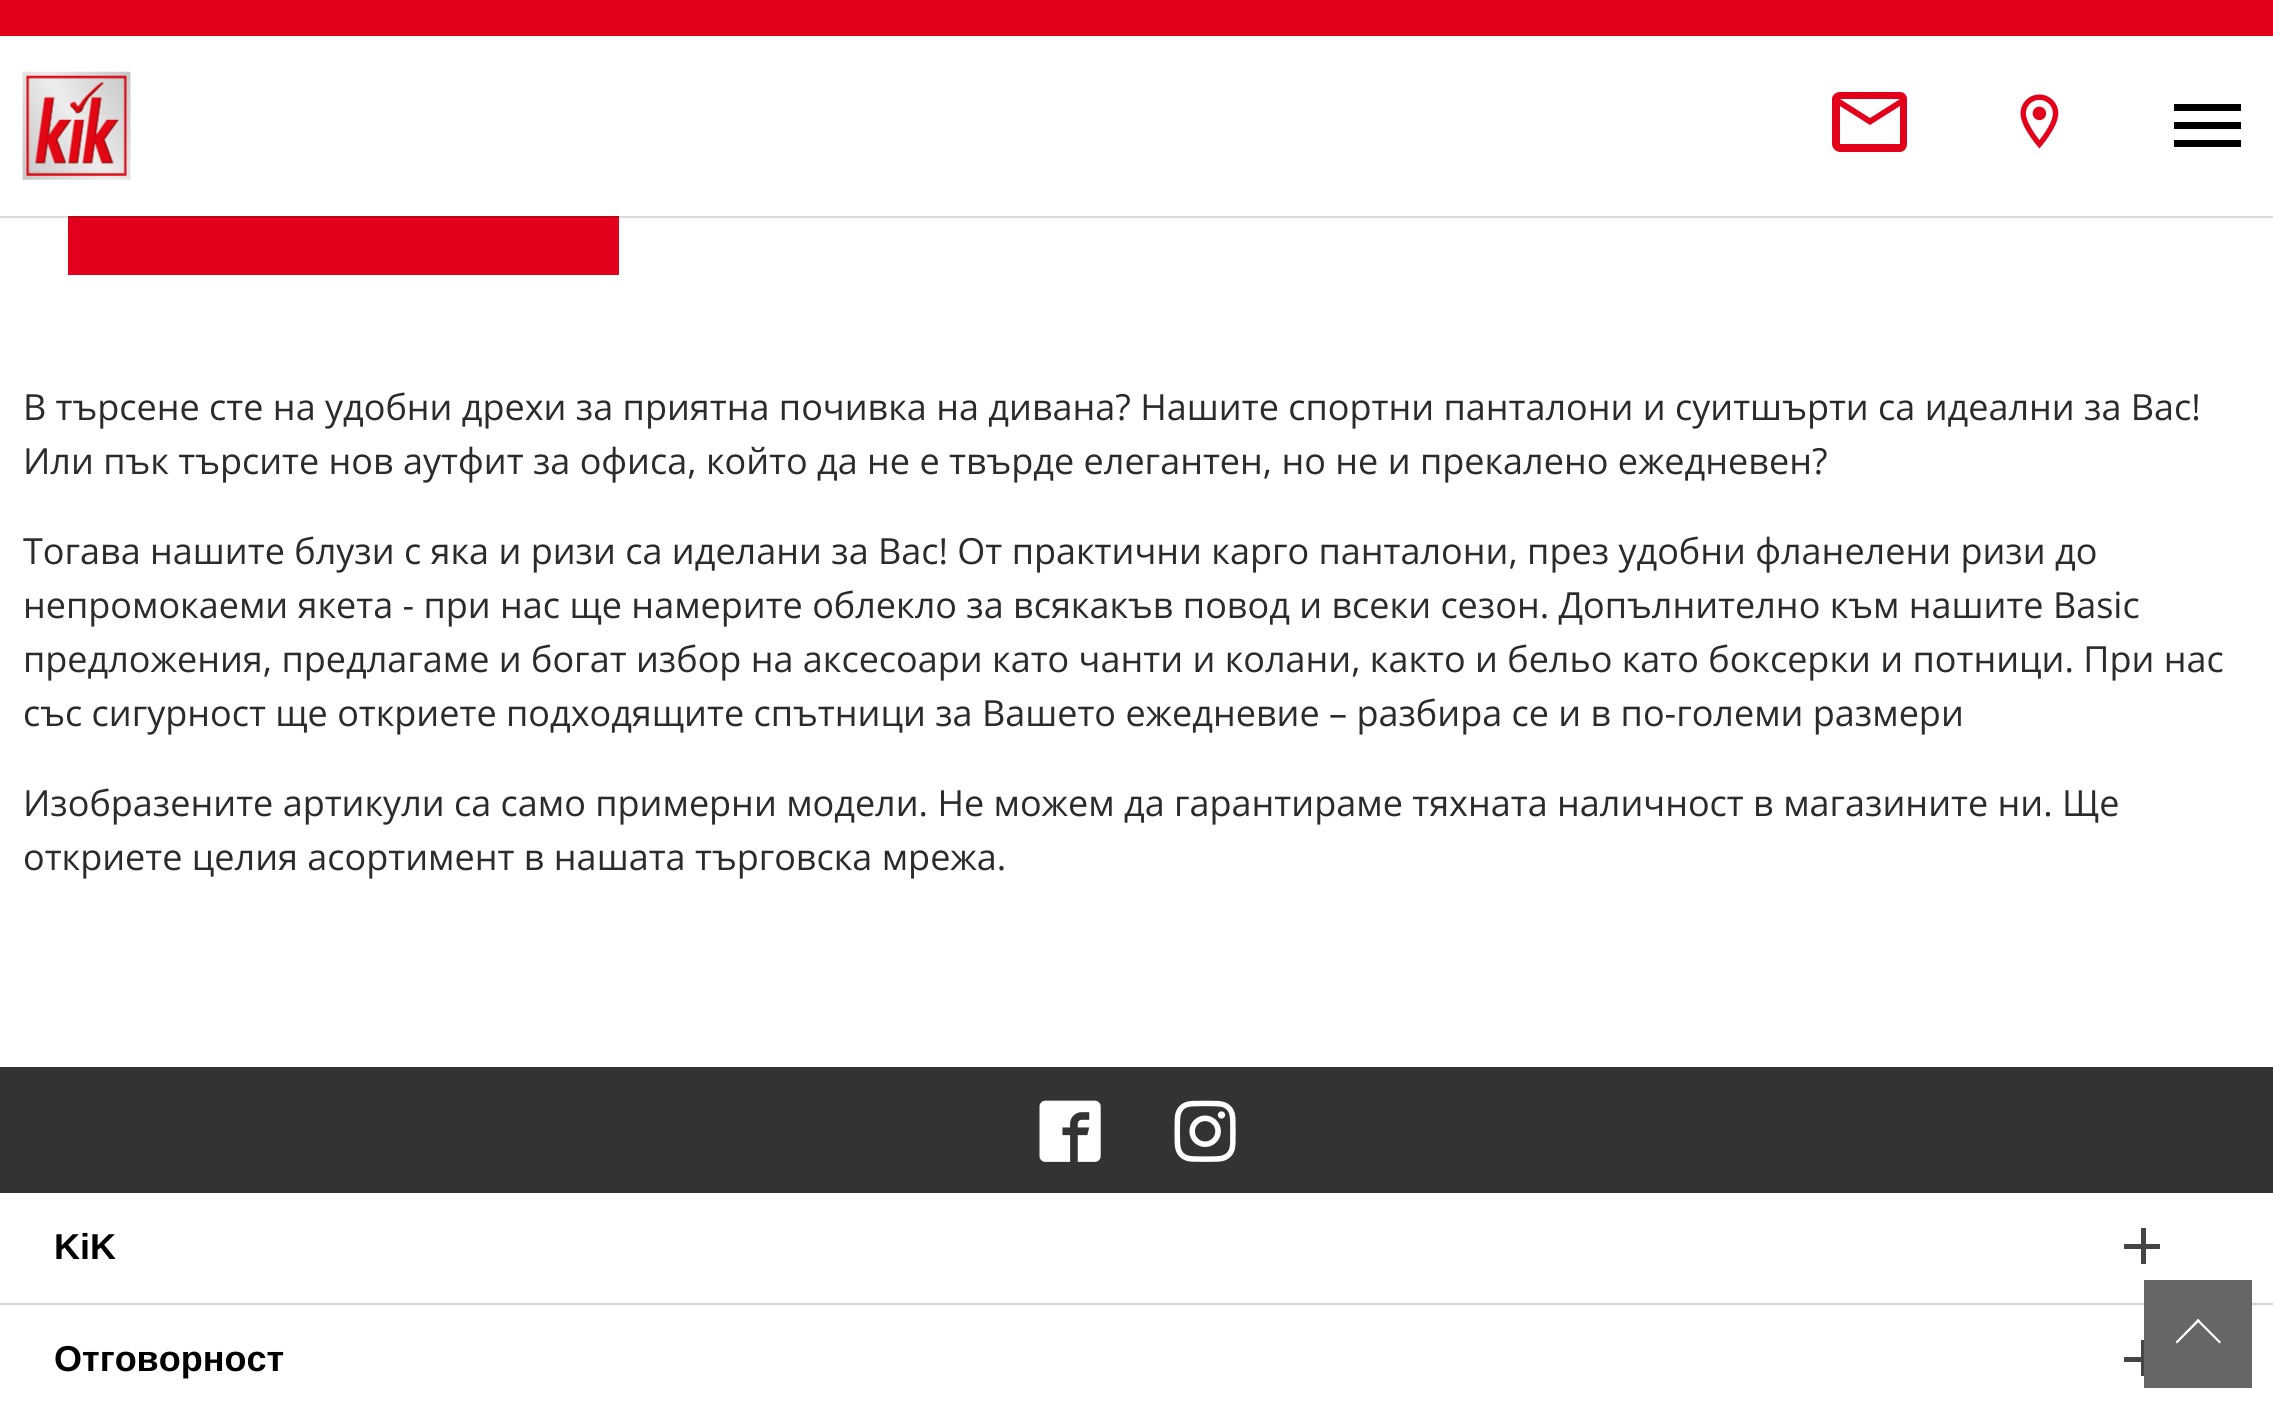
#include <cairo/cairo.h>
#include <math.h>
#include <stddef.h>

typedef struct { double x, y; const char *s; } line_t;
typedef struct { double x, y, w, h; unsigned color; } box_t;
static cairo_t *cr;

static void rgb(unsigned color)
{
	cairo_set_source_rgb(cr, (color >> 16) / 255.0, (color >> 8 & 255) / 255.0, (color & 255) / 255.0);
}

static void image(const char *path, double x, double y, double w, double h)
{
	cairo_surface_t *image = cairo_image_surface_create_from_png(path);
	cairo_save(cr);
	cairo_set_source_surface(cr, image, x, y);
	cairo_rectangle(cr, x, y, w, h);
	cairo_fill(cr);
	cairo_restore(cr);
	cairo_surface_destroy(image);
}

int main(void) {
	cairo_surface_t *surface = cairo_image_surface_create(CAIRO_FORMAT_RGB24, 2273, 1409);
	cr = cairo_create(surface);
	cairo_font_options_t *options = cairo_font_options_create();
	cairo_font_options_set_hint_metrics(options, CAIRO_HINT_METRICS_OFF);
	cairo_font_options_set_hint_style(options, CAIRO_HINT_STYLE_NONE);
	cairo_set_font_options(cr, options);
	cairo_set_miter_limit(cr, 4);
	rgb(0xffffff);
	cairo_paint(cr);
	rgb(0xe2001a);
	cairo_rectangle(cr, 0, 0, 2273, 36);
	cairo_fill(cr);
	cairo_rectangle(cr, 68, 216, 551, 59);
	cairo_fill(cr);
	cairo_set_source_rgba(cr, 0, 0, 0, 0.15);
	cairo_new_path(cr);
	cairo_move_to(cr, 0, 216);
	cairo_line_to(cr, 0, 218);
	cairo_line_to(cr, 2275, 218);
	cairo_line_to(cr, 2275, 38);
	cairo_line_to(cr, 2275, 216);
	cairo_close_path(cr);
	cairo_fill(cr);
	image("img/1.png", 22, 71, 109, 109);
	rgb(0xe2001a);
	cairo_new_path(cr);
	cairo_move_to(cr, 1900, 92);
	cairo_line_to(cr, 1840, 92);
	cairo_curve_to(cr, 1836, 92, 1832, 95, 1832, 99);
	cairo_line_to(cr, 1832, 144);
	cairo_curve_to(cr, 1832, 148, 1836, 152, 1840, 152);
	cairo_line_to(cr, 1900, 152);
	cairo_curve_to(cr, 1904, 152, 1907, 148, 1907, 144);
	cairo_line_to(cr, 1907, 99);
	cairo_curve_to(cr, 1907, 95, 1904, 92, 1900, 92);
	cairo_close_path(cr);
	cairo_move_to(cr, 1900, 144);
	cairo_line_to(cr, 1840, 144);
	cairo_line_to(cr, 1840, 106);
	cairo_line_to(cr, 1870, 125);
	cairo_line_to(cr, 1900, 106);
	cairo_close_path(cr);
	cairo_move_to(cr, 1870, 118);
	cairo_line_to(cr, 1840, 99);
	cairo_line_to(cr, 1900, 99);
	cairo_close_path(cr);
	cairo_fill(cr);
	image("img/2.png", 2020, 94, 39, 55);
	{
		static const box_t items[] = {
			{2174, 122, 67, 7, 0x000000},
			{2174, 104, 67, 7, 0x000000},
			{2174, 140, 67, 7, 0x000000},
			{0, 1067, 2273, 126, 0x333333},
		};
		for (size_t i = 0; i < sizeof items / sizeof *items; i++) {
			rgb(items[i].color);
			cairo_rectangle(cr, items[i].x, items[i].y, items[i].w, items[i].h);
			cairo_fill(cr);
		}
	}
	image("img/3.png", 1039, 1100, 62, 62);
	image("img/4.png", 1174, 1100, 62, 62);
	{
		static const box_t items[] = {
			{0, 1303, 2273, 2, 0xced4da},
			{2124, 1244, 36, 5, 0x454545},
			{2141, 1228, 5, 36, 0x454545},
			{2124, 1357, 17, 5, 0x454545},
			{2141, 1340, 3, 36, 0x454545},
			{2144, 1280, 108, 108, 0x666666},
		};
		for (size_t i = 0; i < sizeof items / sizeof *items; i++) {
			rgb(items[i].color);
			cairo_rectangle(cr, items[i].x, items[i].y, items[i].w, items[i].h);
			cairo_fill(cr);
		}
	}
	rgb(0xffffff);
	cairo_new_path(cr);
	cairo_move_to(cr, 2198, 1319);
	cairo_line_to(cr, 2221, 1342);
	cairo_line_to(cr, 2219.5, 1343.5);
	cairo_line_to(cr, 2196.5, 1320.5);
	cairo_close_path(cr);
	cairo_fill(cr);
	cairo_new_path(cr);
	cairo_move_to(cr, 2198, 1319);
	cairo_line_to(cr, 2200, 1320.5);
	cairo_line_to(cr, 2177, 1343.5);
	cairo_line_to(cr, 2175.5, 1342);
	cairo_close_path(cr);
	cairo_fill(cr);
	cairo_select_font_face(cr, "Open Sans", CAIRO_FONT_SLANT_NORMAL, CAIRO_FONT_WEIGHT_NORMAL);
	cairo_set_font_size(cr, 36);
	rgb(0x2b2b2b);
	{
		static const line_t items[] = {
			{23, 420, "В търсене сте на удобни дрехи за приятна почивка на дивана? Нашите спортни панталони и суитшърти са идеални за Вас!"},
			{23, 474, "Или пък търсите нов аутфит за офиса, който да не е твърде елегантен, но не и прекалено ежедневен?"},
			{23, 564, "Тогава нашите блузи с яка и ризи са иделани за Вас! От практични карго панталони, през удобни фланелени ризи до"},
			{23, 618, "непромокаеми якета - при нас ще намерите облекло за всякакъв повод и всеки сезон. Допълнително към нашите Basic"},
			{23, 672, "предложения, предлагаме и богат избор на аксесоари като чанти и колани, както и бельо като боксерки и потници. При нас"},
			{23, 726, "със сигурност ще откриете подходящите спътници за Вашето ежедневие – разбира се и в по-големи размери"},
			{23, 816, "Изобразените артикули са само примерни модели. Не можем да гарантираме тяхната наличност в магазините ни. Ще"},
			{23, 870, "откриете целия асортимент в нашата търговска мрежа."},
		};
		for (size_t i = 0; i < sizeof items / sizeof *items; i++) {
			cairo_move_to(cr, items[i].x, items[i].y);
			cairo_show_text(cr, items[i].s);
		}
	}
	cairo_select_font_face(cr, "Liberation Sans", CAIRO_FONT_SLANT_NORMAL, CAIRO_FONT_WEIGHT_BOLD);
	rgb(0x000000);
	cairo_move_to(cr, 54, 1259);
	cairo_show_text(cr, "KiK");
	cairo_move_to(cr, 54, 1371);
	cairo_show_text(cr, "Отговорност");
	cairo_surface_write_to_png(surface, "page.png");
	cairo_font_options_destroy(options);
	cairo_destroy(cr);
	cairo_surface_destroy(surface);
	return 0;
}
